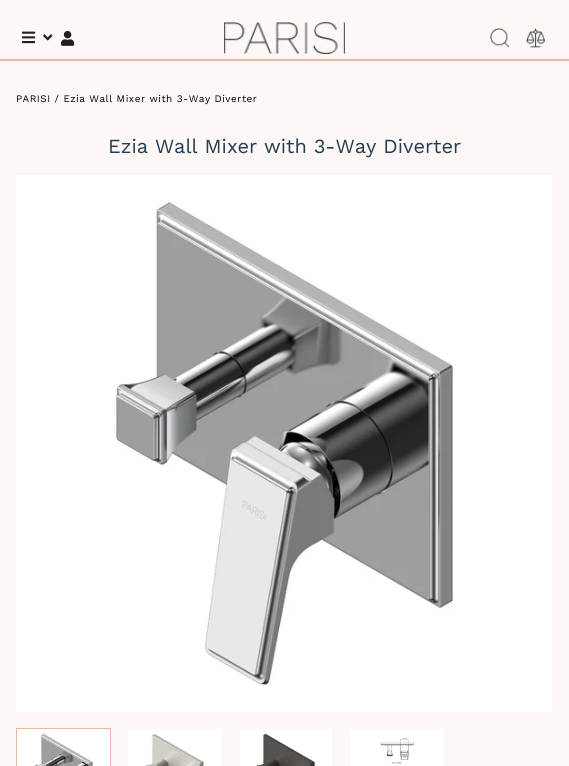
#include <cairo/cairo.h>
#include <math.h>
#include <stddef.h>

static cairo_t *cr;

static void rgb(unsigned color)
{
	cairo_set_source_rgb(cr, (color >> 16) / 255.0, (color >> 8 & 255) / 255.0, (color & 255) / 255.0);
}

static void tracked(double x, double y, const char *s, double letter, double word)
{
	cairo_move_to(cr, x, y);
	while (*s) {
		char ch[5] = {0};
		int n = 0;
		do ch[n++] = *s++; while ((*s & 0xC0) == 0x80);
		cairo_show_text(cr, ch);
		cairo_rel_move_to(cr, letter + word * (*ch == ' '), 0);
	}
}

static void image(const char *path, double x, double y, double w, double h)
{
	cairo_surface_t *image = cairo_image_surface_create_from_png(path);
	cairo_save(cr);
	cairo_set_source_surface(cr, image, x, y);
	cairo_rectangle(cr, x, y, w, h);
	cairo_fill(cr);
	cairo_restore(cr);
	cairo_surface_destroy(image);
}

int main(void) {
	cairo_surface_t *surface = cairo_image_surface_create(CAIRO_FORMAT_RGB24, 569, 766);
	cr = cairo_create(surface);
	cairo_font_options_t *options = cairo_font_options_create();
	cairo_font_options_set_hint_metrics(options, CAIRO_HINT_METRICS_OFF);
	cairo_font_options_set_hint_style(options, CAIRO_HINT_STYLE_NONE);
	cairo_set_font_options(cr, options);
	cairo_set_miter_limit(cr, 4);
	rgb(0xfdf8f6);
	cairo_paint(cr);
	image("img/1.png", 22, 31, 14, 13);
	image("img/2.png", 43, 34, 10, 7);
	image("img/3.png", 61, 30, 14, 16);
	image("img/4.png", 224, 22, 121, 32);
	image("img/5.png", 490, 28, 20, 20);
	image("img/6.png", 526, 28, 19, 20);
	rgb(0xebb8a5);
	cairo_rectangle(cr, 0, 59, 569, 2);
	cairo_fill(cr);
	image("img/7.png", 16, 175, 537, 537);
	cairo_rectangle(cr, 16.5, 728.5, 94, 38);
	cairo_set_line_width(cr, 1);
	cairo_stroke(cr);
	image("img/8.png", 17, 729, 93, 37);
	image("img/9.png", 128, 729, 93, 37);
	image("img/10.png", 239, 729, 93, 37);
	image("img/11.png", 350, 729, 93, 37);
	cairo_select_font_face(cr, "Work Sans", CAIRO_FONT_SLANT_NORMAL, CAIRO_FONT_WEIGHT_NORMAL);
	cairo_set_font_size(cr, 10);
	rgb(0x000000);
	tracked(16, 102, "PARISI / Ezia Wall Mixer with 3-Way Diverter", 0.5, 0);
	cairo_set_font_size(cr, 20);
	rgb(0x223c52);
	cairo_move_to(cr, 108, 153);
	cairo_show_text(cr, "Ezia Wall Mixer with 3-Way Diverter");
	cairo_surface_write_to_png(surface, "page.png");
	cairo_font_options_destroy(options);
	cairo_destroy(cr);
	cairo_surface_destroy(surface);
	return 0;
}
